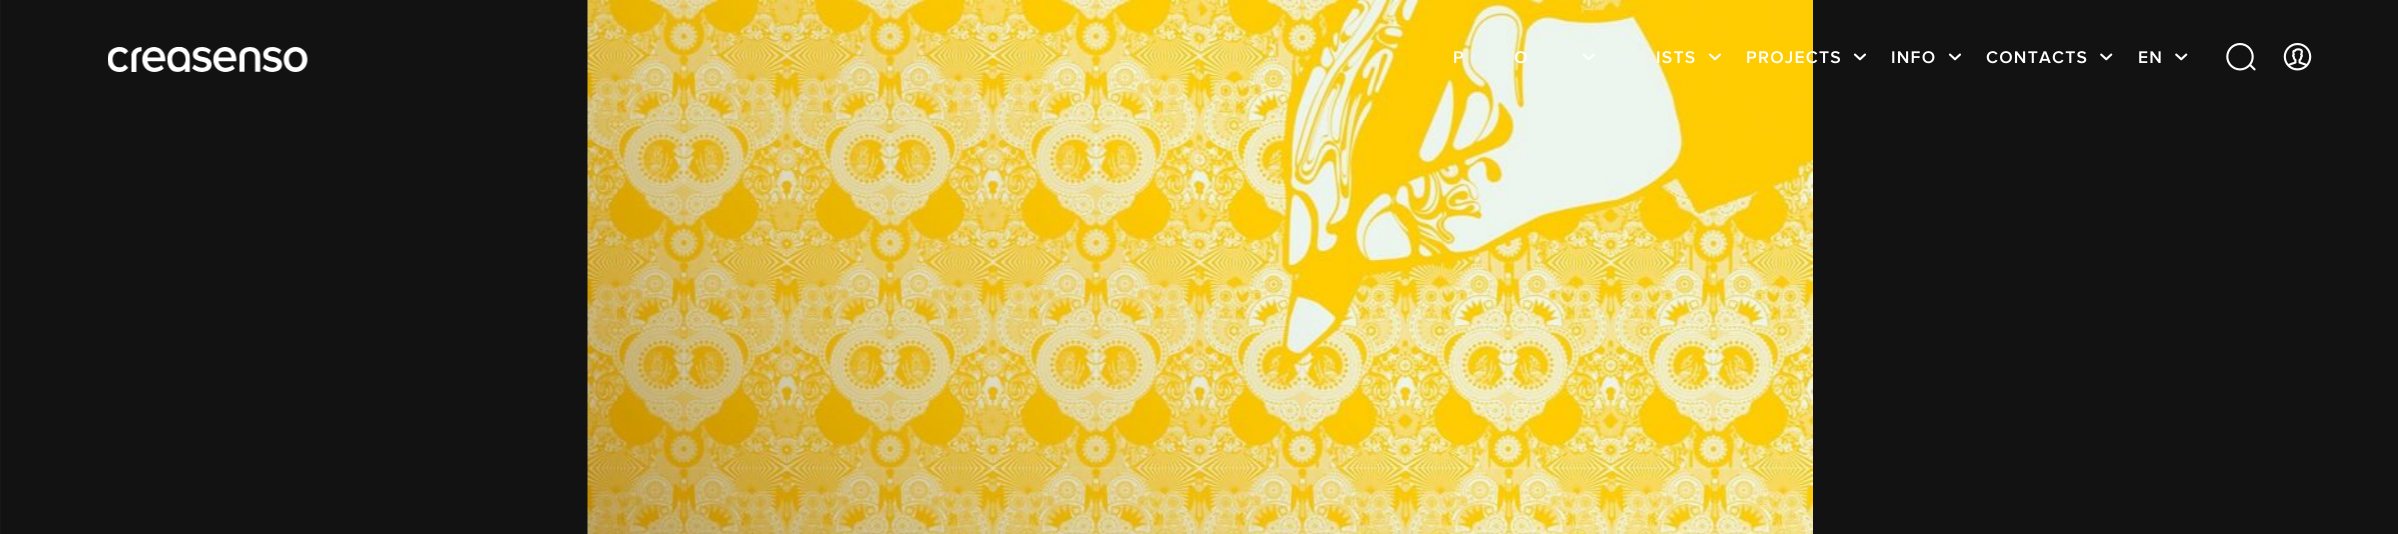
#include <cairo/cairo.h>
#include <math.h>
#include <stddef.h>

typedef struct { double x, y; const char *s; } line_t;
static cairo_t *cr;

static void rgb(unsigned color)
{
	cairo_set_source_rgb(cr, (color >> 16) / 255.0, (color >> 8 & 255) / 255.0, (color & 255) / 255.0);
}

static void tracked(double x, double y, const char *s, double letter, double word)
{
	cairo_move_to(cr, x, y);
	while (*s) {
		char ch[5] = {0};
		int n = 0;
		do ch[n++] = *s++; while ((*s & 0xC0) == 0x80);
		cairo_show_text(cr, ch);
		cairo_rel_move_to(cr, letter + word * (*ch == ' '), 0);
	}
}

static void image(const char *path, double x, double y, double w, double h)
{
	cairo_surface_t *image = cairo_image_surface_create_from_png(path);
	cairo_save(cr);
	cairo_set_source_surface(cr, image, x, y);
	cairo_rectangle(cr, x, y, w, h);
	cairo_fill(cr);
	cairo_restore(cr);
	cairo_surface_destroy(image);
}

int main(void) {
	cairo_surface_t *surface = cairo_image_surface_create(CAIRO_FORMAT_RGB24, 2398, 534);
	cr = cairo_create(surface);
	cairo_font_options_t *options = cairo_font_options_create();
	cairo_font_options_set_hint_metrics(options, CAIRO_HINT_METRICS_OFF);
	cairo_font_options_set_hint_style(options, CAIRO_HINT_STYLE_NONE);
	cairo_set_font_options(cr, options);
	cairo_set_miter_limit(cr, 4);
	rgb(0x181818);
	cairo_paint(cr);
	rgb(0x121212);
	cairo_rectangle(cr, 1, 0, 2397, 534);
	cairo_fill(cr);
	image("img/1.png", 587, 0, 1226, 534);
	image("img/2.png", 108, 46, 200, 26);
	image("img/3.png", 1582, 53, 13, 8);
	image("img/4.png", 1708, 53, 13, 8);
	image("img/5.png", 1853, 53, 13, 8);
	image("img/5.png", 1948, 53, 13, 8);
	image("img/6.png", 2100, 53, 13, 8);
	image("img/6.png", 2175, 53, 13, 8);
	image("img/7.png", 2226, 43, 30, 28);
	image("img/8.png", 2283, 43, 29, 28);
	cairo_select_font_face(cr, "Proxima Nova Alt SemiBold", CAIRO_FONT_SLANT_NORMAL, CAIRO_FONT_WEIGHT_NORMAL);
	cairo_set_font_size(cr, 17.5);
	rgb(0xffffff);
	{
		static const line_t items[] = {
			{1453, 63, "P"},
			{1514, 63, "O"},
			{1656, 63, "ISTS"},
			{1746, 63, "PROJECTS"},
			{1891, 63, "INFO"},
			{1986, 63, "CONTACTS"},
			{2138, 63, "EN"},
		};
		for (size_t i = 0; i < sizeof items / sizeof *items; i++) {
			tracked(items[i].x, items[i].y, items[i].s, 1.25, 0);
		}
	}
	cairo_surface_write_to_png(surface, "page.png");
	cairo_font_options_destroy(options);
	cairo_destroy(cr);
	cairo_surface_destroy(surface);
	return 0;
}
